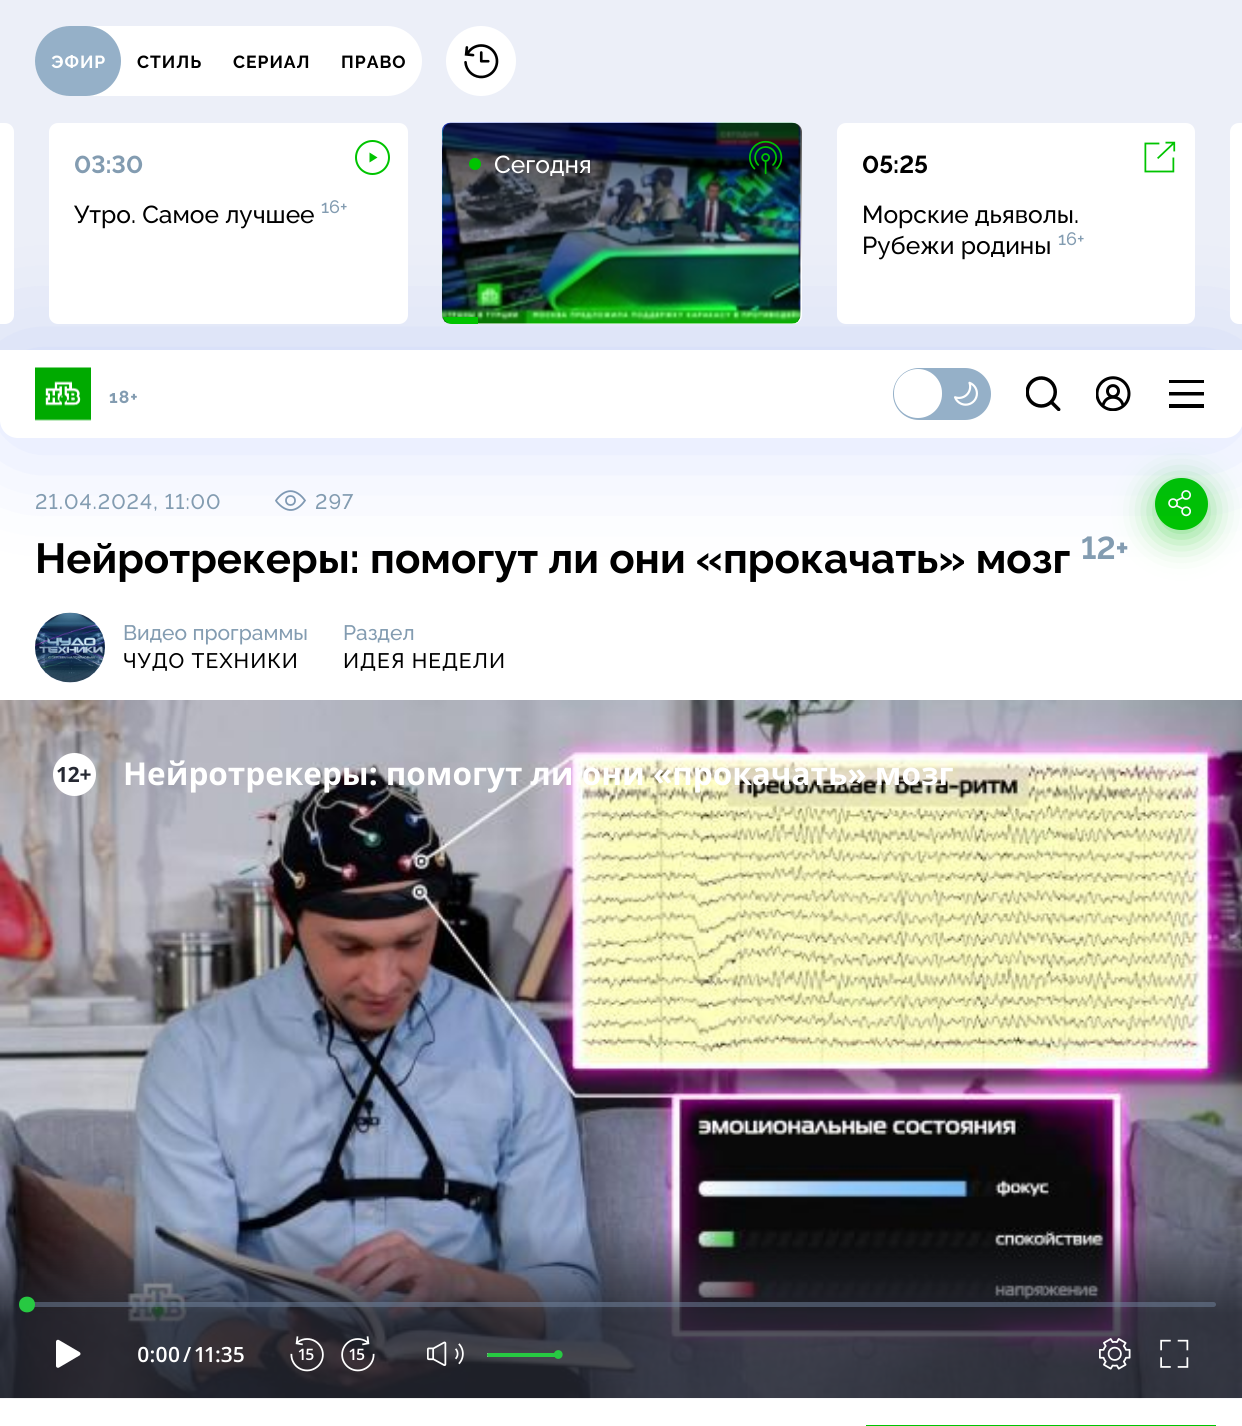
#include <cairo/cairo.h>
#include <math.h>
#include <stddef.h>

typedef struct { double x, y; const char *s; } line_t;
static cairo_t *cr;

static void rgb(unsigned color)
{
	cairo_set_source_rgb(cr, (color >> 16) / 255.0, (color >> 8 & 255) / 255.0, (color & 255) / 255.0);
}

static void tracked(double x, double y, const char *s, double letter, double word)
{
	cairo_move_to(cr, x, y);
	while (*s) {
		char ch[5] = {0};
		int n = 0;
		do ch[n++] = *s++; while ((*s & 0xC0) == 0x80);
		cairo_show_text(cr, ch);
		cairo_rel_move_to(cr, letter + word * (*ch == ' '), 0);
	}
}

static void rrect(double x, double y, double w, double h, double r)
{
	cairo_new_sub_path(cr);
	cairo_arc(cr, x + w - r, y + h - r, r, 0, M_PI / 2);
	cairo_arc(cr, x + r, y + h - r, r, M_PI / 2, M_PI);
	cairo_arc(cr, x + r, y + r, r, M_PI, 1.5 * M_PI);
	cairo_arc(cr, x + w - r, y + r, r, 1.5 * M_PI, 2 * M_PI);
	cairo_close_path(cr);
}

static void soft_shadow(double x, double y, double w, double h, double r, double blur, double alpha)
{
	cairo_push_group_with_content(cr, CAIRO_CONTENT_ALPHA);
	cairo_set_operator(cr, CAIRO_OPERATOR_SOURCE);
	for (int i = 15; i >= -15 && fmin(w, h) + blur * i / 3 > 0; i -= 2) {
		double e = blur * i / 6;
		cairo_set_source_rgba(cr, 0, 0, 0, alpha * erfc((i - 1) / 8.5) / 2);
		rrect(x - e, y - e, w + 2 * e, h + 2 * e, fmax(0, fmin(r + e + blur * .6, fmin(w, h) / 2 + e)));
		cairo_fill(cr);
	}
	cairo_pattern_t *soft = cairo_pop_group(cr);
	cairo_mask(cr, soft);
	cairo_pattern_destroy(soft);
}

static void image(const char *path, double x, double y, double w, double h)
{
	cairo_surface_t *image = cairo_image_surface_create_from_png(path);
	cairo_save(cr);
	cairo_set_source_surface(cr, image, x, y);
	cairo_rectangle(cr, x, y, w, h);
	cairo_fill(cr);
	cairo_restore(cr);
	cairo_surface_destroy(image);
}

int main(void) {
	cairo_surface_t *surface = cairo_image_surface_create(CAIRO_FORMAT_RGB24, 1242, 1426);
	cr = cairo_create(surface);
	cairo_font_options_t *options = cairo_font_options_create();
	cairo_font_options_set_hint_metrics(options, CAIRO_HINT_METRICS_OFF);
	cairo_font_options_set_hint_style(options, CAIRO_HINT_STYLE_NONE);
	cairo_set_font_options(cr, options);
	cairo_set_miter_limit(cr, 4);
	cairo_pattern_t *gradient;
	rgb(0xffffff);
	cairo_paint(cr);
	rgb(0xeceff8);
	cairo_rectangle(cr, 0, 0, 1242, 350);
	cairo_fill(cr);
	rgb(0xffffff);
	rrect(35, 26, 387, 70, 35);
	cairo_fill(cr);
	rgb(0x95b0c8);
	rrect(35, 26, 86, 70, 35);
	cairo_fill(cr);
	rgb(0xffffff);
	cairo_arc(cr, 481, 61, 35, 0, 2 * M_PI);
	cairo_fill(cr);
	image("img/1.png", 464, 44, 35, 35);
	cairo_new_path(cr);
	cairo_move_to(cr, 276.5, 501.5);
	cairo_line_to(cr, 276, 500.5);
	cairo_curve_to(cr, 285, 488, 296, 488, 305, 500.5);
	cairo_curve_to(cr, 296.5, 512.5, 286.5, 513.5, 276.5, 501.5);
	cairo_close_path(cr);
	rgb(0x839cb1);
	cairo_set_line_width(cr, 1.8);
	cairo_stroke(cr);
	cairo_arc(cr, 290.5, 500.5, 4.5, 0, 2 * M_PI);
	cairo_stroke(cr);
	rgb(0x00c400);
	soft_shadow(1155, 485, 53, 52, 26, 17.5, 0.5);
	rgb(0x00c400);
	rrect(1155, 478, 53, 52, 26);
	cairo_fill(cr);
	image("img/9.png", 1168, 490, 23, 27);
	rgb(0xf4f7ff);
	cairo_arc(cr, 70, 648, 35, 0, 2 * M_PI);
	cairo_fill(cr);
	image("img/10.png", 35, 612, 70, 71);
	rgb(0x0038ff);
	soft_shadow(0, 357, 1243, 88, 18, 61, 0.15);
	rgb(0xffffff);
	cairo_new_path(cr);
	cairo_move_to(cr, 0, 123);
	cairo_line_to(cr, 5, 123);
	cairo_curve_to(cr, 10, 123, 14, 127, 14, 132);
	cairo_line_to(cr, 14, 315);
	cairo_curve_to(cr, 14, 320, 10, 324, 5, 324);
	cairo_line_to(cr, 0, 324);
	cairo_close_path(cr);
	cairo_fill(cr);
	rrect(49, 123, 359, 201, 9);
	cairo_fill(cr);
	cairo_arc(cr, 372.5, 157.5, 16.5, 0, 2 * M_PI);
	rgb(0x00c400);
	cairo_set_line_width(cr, 2);
	cairo_stroke(cr);
	cairo_new_path(cr);
	cairo_move_to(cr, 369.5, 162.5);
	cairo_line_to(cr, 369.5, 152.5);
	cairo_line_to(cr, 377.5, 157.5);
	cairo_close_path(cr);
	cairo_fill(cr);
	rgb(0xffffff);
	rrect(443, 123, 359, 201, 9);
	cairo_fill(cr);
	image("img/2.png", 441, 122, 360, 202);
	gradient = cairo_pattern_create_linear(621, 263, 621, 123);
	cairo_pattern_add_color_stop_rgba(gradient, 0, 0, 0, 0, 0);
	cairo_pattern_add_color_stop_rgba(gradient, 1, 0, 0, 0, 0.7);
	cairo_set_source(cr, gradient);
	cairo_pattern_destroy(gradient);
	cairo_new_path(cr);
	cairo_move_to(cr, 452, 123);
	cairo_line_to(cr, 793, 123);
	cairo_curve_to(cr, 798, 123, 802, 127, 802, 132);
	cairo_line_to(cr, 802, 263);
	cairo_line_to(cr, 443, 263);
	cairo_line_to(cr, 443, 132);
	cairo_curve_to(cr, 443, 127, 447, 123, 452, 123);
	cairo_close_path(cr);
	cairo_fill(cr);
	rgb(0x00c400);
	cairo_arc(cr, 475, 164, 6, 0, 2 * M_PI);
	cairo_fill(cr);
	image("img/3.png", 749, 140, 34, 35);
	cairo_save(cr);
	rrect(443, 123, 359, 201, 9);
	cairo_clip(cr);
	cairo_rectangle(cr, 443, 317, 35, 7);
	cairo_fill(cr);
	cairo_restore(cr);
	rgb(0xffffff);
	rrect(837, 123, 358, 201, 9);
	cairo_fill(cr);
	image("img/4.png", 1144, 141, 32, 32);
	cairo_new_path(cr);
	cairo_move_to(cr, 1239, 123);
	cairo_line_to(cr, 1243, 123);
	cairo_line_to(cr, 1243, 324);
	cairo_line_to(cr, 1239, 324);
	cairo_curve_to(cr, 1234, 324, 1230, 320, 1230, 315);
	cairo_line_to(cr, 1230, 132);
	cairo_curve_to(cr, 1230, 127, 1234, 123, 1239, 123);
	cairo_close_path(cr);
	cairo_fill(cr);
	cairo_new_path(cr);
	cairo_move_to(cr, 0, 350);
	cairo_line_to(cr, 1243, 350);
	cairo_line_to(cr, 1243, 420);
	cairo_curve_to(cr, 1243, 430, 1235, 438, 1225, 438);
	cairo_line_to(cr, 18, 438);
	cairo_curve_to(cr, 8, 438, 0, 430, 0, 420);
	cairo_close_path(cr);
	cairo_fill(cr);
	image("img/5.png", 35, 367, 56, 54);
	rgb(0x95b0c8);
	rrect(893, 368, 98, 52, 26);
	cairo_fill(cr);
	rgb(0xffffff);
	rrect(894, 369, 48, 49, 24);
	cairo_fill(cr);
	image("img/6.png", 954, 381, 24, 25);
	image("img/7.png", 1026, 376, 35, 35);
	image("img/8.png", 1096, 376, 35, 35);
	rgb(0x000000);
	cairo_set_fill_rule(cr, CAIRO_FILL_RULE_EVEN_ODD);
	cairo_new_path(cr);
	cairo_move_to(cr, 1169, 380);
	cairo_line_to(cr, 1204, 380);
	cairo_line_to(cr, 1204, 383);
	cairo_line_to(cr, 1169, 383);
	cairo_close_path(cr);
	cairo_move_to(cr, 1169, 392);
	cairo_line_to(cr, 1204, 392);
	cairo_line_to(cr, 1204, 395.5);
	cairo_line_to(cr, 1169, 395.5);
	cairo_close_path(cr);
	cairo_move_to(cr, 1204, 404);
	cairo_line_to(cr, 1169, 404);
	cairo_line_to(cr, 1169, 408);
	cairo_line_to(cr, 1204, 408);
	cairo_close_path(cr);
	cairo_fill(cr);
	image("img/11.png", 0, 700, 1242, 699);
	rgb(0xffffff);
	cairo_arc(cr, 74.5, 774.5, 21.5, 0, 2 * M_PI);
	cairo_fill(cr);
	cairo_set_source_rgba(cr, 0.451, 0.522, 0.624, 0.5);
	rrect(26, 1302, 1190, 5, 2.5);
	cairo_fill(cr);
	rgb(0x27c942);
	cairo_set_fill_rule(cr, CAIRO_FILL_RULE_WINDING);
	cairo_new_path(cr);
	cairo_move_to(cr, 19, 1304.5);
	cairo_curve_to(cr, 19, 1315, 35, 1315, 35, 1304.5);
	cairo_curve_to(cr, 35, 1294, 19, 1294, 19, 1304.5);
	cairo_close_path(cr);
	cairo_fill(cr);
	image("img/12.png", 56, 1339, 25, 29);
	image("img/13.png", 290, 1336, 34, 36);
	image("img/14.png", 341, 1336, 34, 36);
	image("img/15.png", 427, 1341, 37, 25);
	cairo_set_source_rgba(cr, 1, 1, 1, 0.5);
	cairo_rectangle(cr, 487, 1353, 2, 4);
	cairo_fill(cr);
	rgb(0x27c942);
	rrect(487, 1353, 71, 4, 2);
	cairo_fill(cr);
	image("img/16.png", 554, 1350, 9, 9);
	image("img/17.png", 1099, 1338, 32, 32);
	image("img/18.png", 1160, 1339, 29, 29);
	rgb(0x00c400);
	cairo_rectangle(cr, 866, 1425, 350, 1);
	cairo_fill(cr);
	cairo_select_font_face(cr, "Raleway", CAIRO_FONT_SLANT_NORMAL, CAIRO_FONT_WEIGHT_BOLD);
	cairo_set_font_size(cr, 17.5);
	rgb(0xffffff);
	tracked(51, 68, "ЭФИР", 1, 0);
	rgb(0x000000);
	{
		static const line_t items[] = {
			{137, 68, "СТИЛЬ"},
			{233, 68, "СЕРИАЛ"},
			{341, 68, "ПРАВО"},
		};
		for (size_t i = 0; i < sizeof items / sizeof *items; i++) {
			tracked(items[i].x, items[i].y, items[i].s, 1, 0);
		}
	}
	cairo_select_font_face(cr, "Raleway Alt", CAIRO_FONT_SLANT_NORMAL, CAIRO_FONT_WEIGHT_BOLD);
	cairo_set_font_size(cr, 24.5);
	rgb(0x839cb1);
	cairo_move_to(cr, 74, 173);
	cairo_show_text(cr, "03:30");
	cairo_select_font_face(cr, "Raleway Medium", CAIRO_FONT_SLANT_NORMAL, CAIRO_FONT_WEIGHT_NORMAL);
	rgb(0x000000);
	cairo_move_to(cr, 74, 223);
	cairo_show_text(cr, "Утро. Самое лучшее");
	cairo_set_font_size(cr, 18);
	rgb(0x839cb1);
	cairo_move_to(cr, 321, 213);
	cairo_show_text(cr, "16+");
	cairo_set_font_size(cr, 24.5);
	rgb(0xffffff);
	cairo_move_to(cr, 494, 173);
	cairo_show_text(cr, "Сегодня");
	cairo_select_font_face(cr, "Raleway Alt", CAIRO_FONT_SLANT_NORMAL, CAIRO_FONT_WEIGHT_BOLD);
	rgb(0x000000);
	cairo_move_to(cr, 862, 173);
	cairo_show_text(cr, "05:25");
	cairo_select_font_face(cr, "Raleway Medium", CAIRO_FONT_SLANT_NORMAL, CAIRO_FONT_WEIGHT_NORMAL);
	cairo_move_to(cr, 862, 223);
	cairo_show_text(cr, "Морские дьяволы.");
	cairo_move_to(cr, 862, 254);
	cairo_show_text(cr, "Рубежи родины");
	cairo_set_font_size(cr, 18);
	rgb(0x839cb1);
	cairo_move_to(cr, 1058, 245);
	cairo_show_text(cr, "16+");
	cairo_select_font_face(cr, "Raleway", CAIRO_FONT_SLANT_NORMAL, CAIRO_FONT_WEIGHT_BOLD);
	cairo_set_font_size(cr, 17.5);
	tracked(109, 403, "18+", 1, 0);
	cairo_select_font_face(cr, "Raleway Alt Medium", CAIRO_FONT_SLANT_NORMAL, CAIRO_FONT_WEIGHT_NORMAL);
	cairo_set_font_size(cr, 21);
	tracked(35, 509, "21.04.2024, 11:00", 1, 0);
	tracked(315, 509, "297", 1, 0);
	cairo_select_font_face(cr, "Raleway", CAIRO_FONT_SLANT_NORMAL, CAIRO_FONT_WEIGHT_BOLD);
	cairo_set_font_size(cr, 42);
	rgb(0x000000);
	cairo_move_to(cr, 35, 573);
	cairo_show_text(cr, "Нейротрекеры: помогут ли они «прокачать» мозг");
	cairo_select_font_face(cr, "Raleway Alt", CAIRO_FONT_SLANT_NORMAL, CAIRO_FONT_WEIGHT_BOLD);
	cairo_set_font_size(cr, 31.5);
	rgb(0x839cb1);
	cairo_move_to(cr, 1081, 559);
	cairo_show_text(cr, "12+");
	cairo_select_font_face(cr, "Raleway Medium", CAIRO_FONT_SLANT_NORMAL, CAIRO_FONT_WEIGHT_NORMAL);
	cairo_set_font_size(cr, 21);
	cairo_move_to(cr, 123, 640);
	cairo_show_text(cr, "Видео программы");
	rgb(0x000000);
	tracked(123, 668, "ЧУДО ТЕХНИКИ", 1, 0);
	rgb(0x839cb1);
	cairo_move_to(cr, 343, 640);
	cairo_show_text(cr, "Раздел");
	rgb(0x000000);
	tracked(343, 668, "ИДЕЯ НЕДЕЛИ", 1, 0);
	cairo_select_font_face(cr, "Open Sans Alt", CAIRO_FONT_SLANT_NORMAL, CAIRO_FONT_WEIGHT_BOLD);
	rgb(0x252832);
	cairo_move_to(cr, 57, 782);
	cairo_show_text(cr, "12+");
	cairo_select_font_face(cr, "Open Sans", CAIRO_FONT_SLANT_NORMAL, CAIRO_FONT_WEIGHT_BOLD);
	cairo_set_font_size(cr, 31.5);
	rgb(0xffffff);
	cairo_move_to(cr, 123, 785);
	cairo_show_text(cr, "Нейротрекеры: помогут ли они «прокачать» мозг");
	cairo_select_font_face(cr, "Open Sans Alt SemiBold", CAIRO_FONT_SLANT_NORMAL, CAIRO_FONT_WEIGHT_NORMAL);
	cairo_set_font_size(cr, 21);
	cairo_move_to(cr, 137, 1362);
	cairo_show_text(cr, "0:00");
	cairo_select_font_face(cr, "Open Sans SemiBold", CAIRO_FONT_SLANT_NORMAL, CAIRO_FONT_WEIGHT_NORMAL);
	cairo_move_to(cr, 183, 1362);
	cairo_show_text(cr, "/");
	cairo_select_font_face(cr, "Open Sans Alt SemiBold", CAIRO_FONT_SLANT_NORMAL, CAIRO_FONT_WEIGHT_NORMAL);
	cairo_move_to(cr, 195, 1362);
	cairo_show_text(cr, "11:35");
	cairo_surface_write_to_png(surface, "page.png");
	cairo_font_options_destroy(options);
	cairo_destroy(cr);
	cairo_surface_destroy(surface);
	return 0;
}
